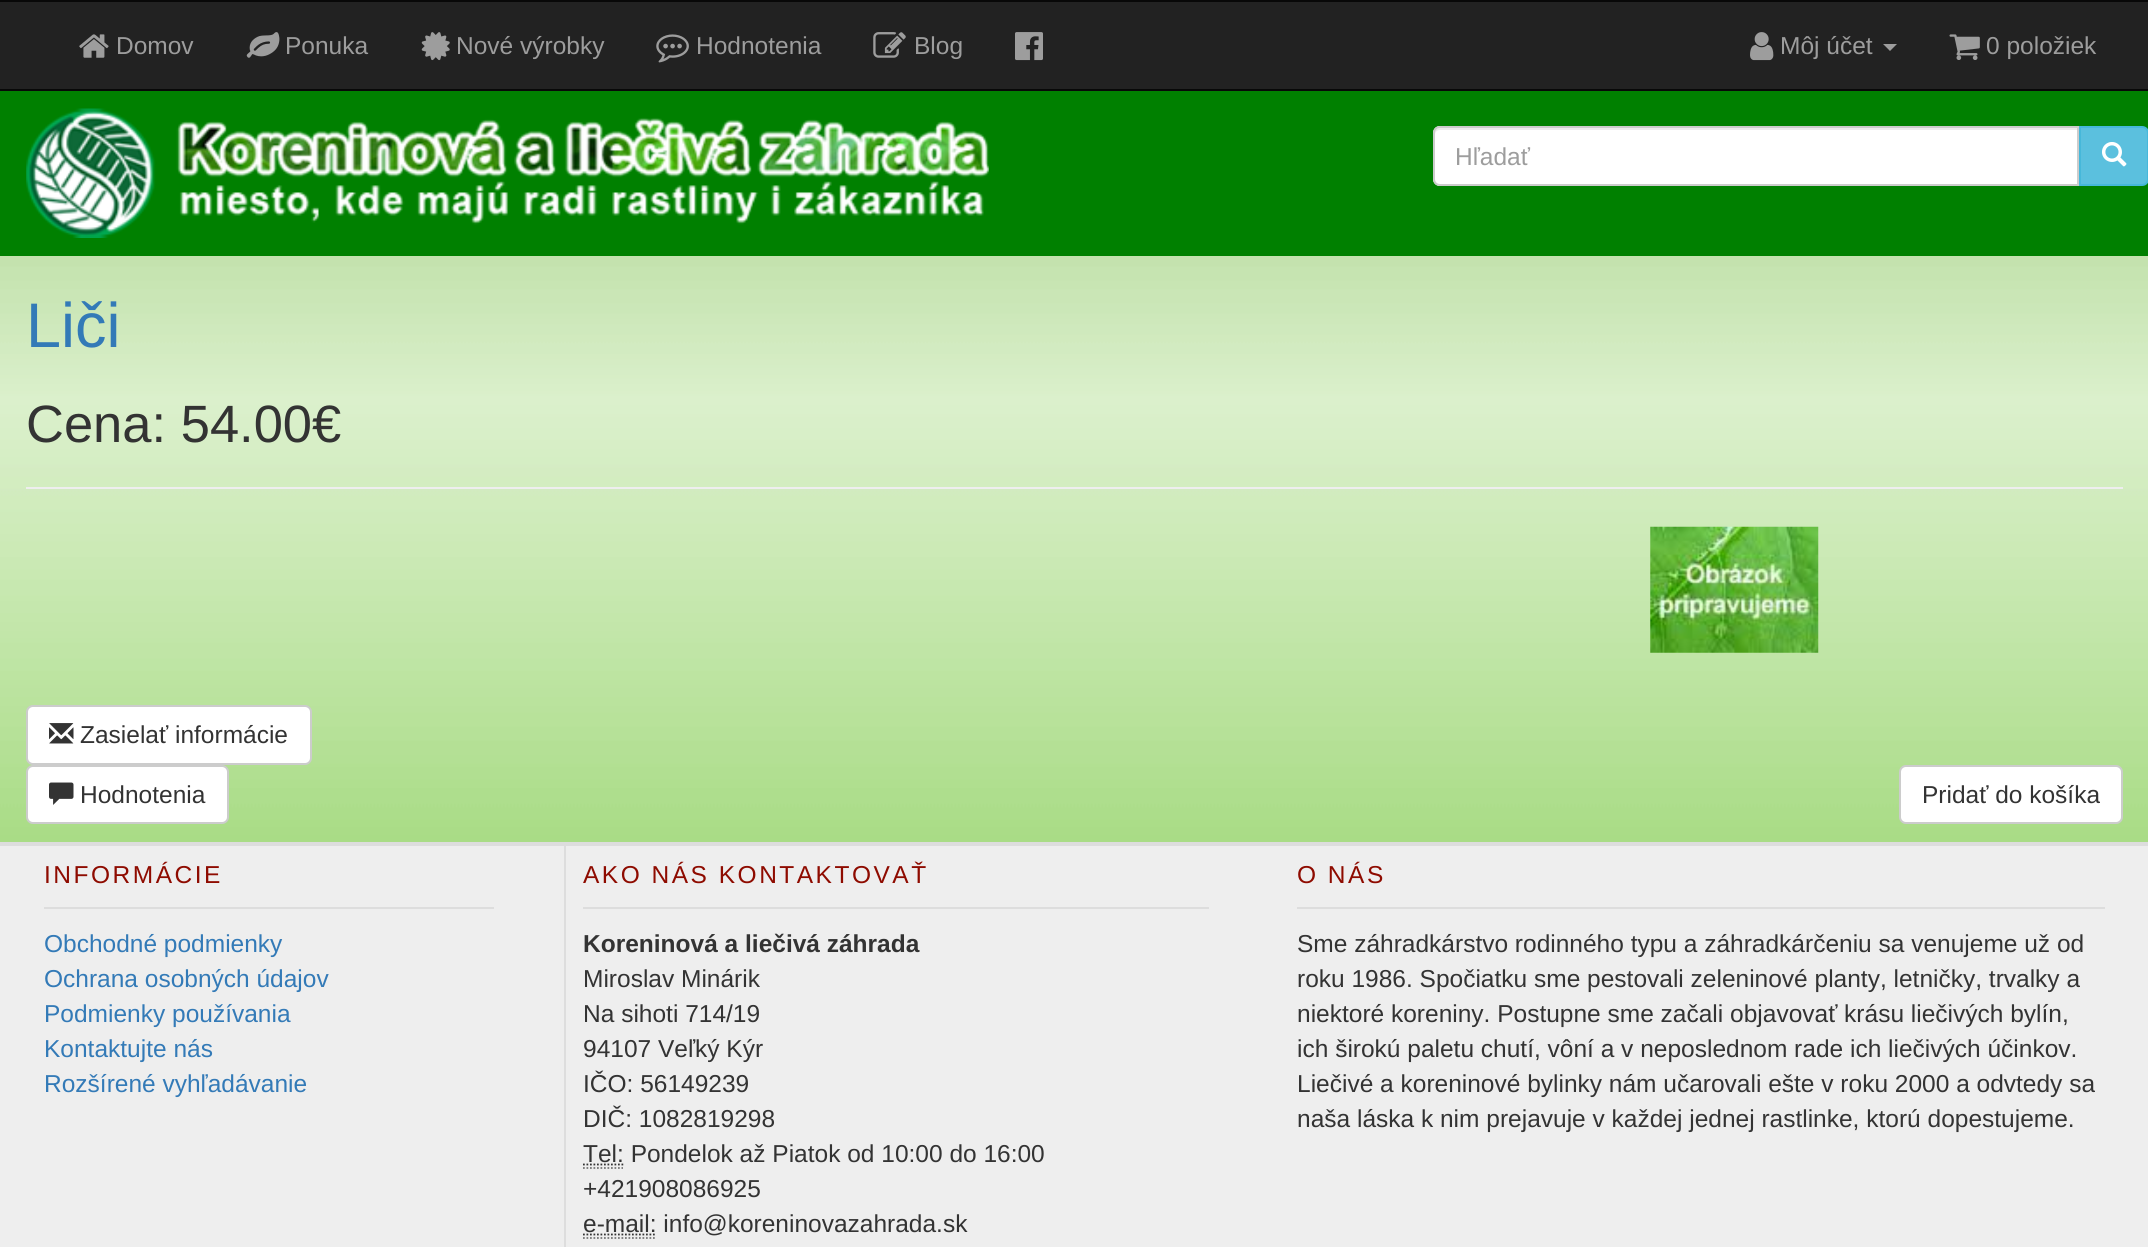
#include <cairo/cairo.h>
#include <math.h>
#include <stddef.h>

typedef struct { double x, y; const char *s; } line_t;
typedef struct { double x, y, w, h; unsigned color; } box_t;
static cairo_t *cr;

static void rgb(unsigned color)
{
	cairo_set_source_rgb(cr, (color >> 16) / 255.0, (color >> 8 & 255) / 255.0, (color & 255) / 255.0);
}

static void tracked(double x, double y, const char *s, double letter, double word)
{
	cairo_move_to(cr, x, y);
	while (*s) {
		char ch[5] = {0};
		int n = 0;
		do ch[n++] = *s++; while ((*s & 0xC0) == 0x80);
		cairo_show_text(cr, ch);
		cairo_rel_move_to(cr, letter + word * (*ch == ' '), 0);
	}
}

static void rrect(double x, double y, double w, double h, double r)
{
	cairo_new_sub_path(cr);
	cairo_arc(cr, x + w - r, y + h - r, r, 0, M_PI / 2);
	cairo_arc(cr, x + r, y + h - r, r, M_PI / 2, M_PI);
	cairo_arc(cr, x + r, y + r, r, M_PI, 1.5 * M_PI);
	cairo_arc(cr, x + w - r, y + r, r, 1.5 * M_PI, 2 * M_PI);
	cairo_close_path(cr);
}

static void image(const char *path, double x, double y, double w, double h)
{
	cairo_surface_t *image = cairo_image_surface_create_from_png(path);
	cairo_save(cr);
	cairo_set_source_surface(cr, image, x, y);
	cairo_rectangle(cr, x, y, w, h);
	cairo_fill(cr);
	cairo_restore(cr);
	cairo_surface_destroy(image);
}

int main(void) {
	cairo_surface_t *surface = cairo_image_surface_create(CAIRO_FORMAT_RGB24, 2148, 1247);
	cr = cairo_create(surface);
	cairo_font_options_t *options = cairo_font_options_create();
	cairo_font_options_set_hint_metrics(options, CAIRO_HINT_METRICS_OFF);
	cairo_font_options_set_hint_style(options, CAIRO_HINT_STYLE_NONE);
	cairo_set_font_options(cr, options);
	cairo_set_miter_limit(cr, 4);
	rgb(0xffffff);
	cairo_paint(cr);
	image("img/1.png", 0, 256, 2148, 586);
	{
		static const box_t items[] = {
			{0, 2, 2148, 87, 0x222222},
			{0, 0, 2148, 2, 0x080808},
			{0, 89, 2148, 2, 0x080808},
		};
		for (size_t i = 0; i < sizeof items / sizeof *items; i++) {
			rgb(items[i].color);
			cairo_rectangle(cr, items[i].x, items[i].y, items[i].w, items[i].h);
			cairo_fill(cr);
		}
	}
	image("img/2.png", 79, 34, 30, 24);
	image("img/3.png", 246, 32, 34, 26);
	image("img/4.png", 421, 32, 29, 29);
	image("img/5.png", 656, 34, 33, 29);
	image("img/6.png", 873, 32, 33, 26);
	image("img/7.png", 1015, 32, 28, 29);
	image("img/8.png", 1750, 32, 24, 29);
	rgb(0x9d9d9d);
	cairo_new_path(cr);
	cairo_move_to(cr, 1883, 44);
	cairo_line_to(cr, 1897, 44);
	cairo_line_to(cr, 1890, 51);
	cairo_close_path(cr);
	cairo_fill(cr);
	image("img/9.png", 1949, 34, 31, 26);
	rgb(0x008000);
	cairo_rectangle(cr, 0, 91, 2148, 165);
	cairo_fill(cr);
	image("img/10.png", 26, 108, 963, 130);
	rgb(0xffffff);
	cairo_new_path(cr);
	cairo_move_to(cr, 1440, 126);
	cairo_line_to(cr, 2079, 126);
	cairo_line_to(cr, 2079, 186);
	cairo_line_to(cr, 1440, 186);
	cairo_curve_to(cr, 1436, 186, 1433, 183, 1433, 179);
	cairo_line_to(cr, 1433, 133);
	cairo_curve_to(cr, 1433, 129, 1436, 126, 1440, 126);
	cairo_close_path(cr);
	cairo_fill(cr);
	rgb(0xececec);
	cairo_new_path(cr);
	cairo_move_to(cr, 1440, 130);
	cairo_line_to(cr, 2077, 130);
	cairo_line_to(cr, 2077, 128);
	cairo_line_to(cr, 1440, 128);
	cairo_curve_to(cr, 1437, 128, 1435, 130, 1435, 133);
	cairo_line_to(cr, 1435, 135);
	cairo_curve_to(cr, 1435, 132, 1437, 130, 1440, 130);
	cairo_close_path(cr);
	cairo_fill(cr);
	cairo_new_path(cr);
	cairo_move_to(cr, 1440, 127);
	cairo_line_to(cr, 2078, 127);
	cairo_line_to(cr, 2078, 185);
	cairo_line_to(cr, 1440, 185);
	cairo_curve_to(cr, 1436.5, 185, 1434, 182.5, 1434, 179);
	cairo_line_to(cr, 1434, 133);
	cairo_curve_to(cr, 1434, 129.5, 1436.5, 127, 1440, 127);
	cairo_close_path(cr);
	rgb(0xcccccc);
	cairo_stroke(cr);
	rgb(0x5bc0de);
	cairo_new_path(cr);
	cairo_move_to(cr, 2080, 127);
	cairo_line_to(cr, 2142, 127);
	cairo_curve_to(cr, 2145.5, 127, 2148, 129.5, 2148, 133);
	cairo_line_to(cr, 2148, 179);
	cairo_curve_to(cr, 2148, 182.5, 2145.5, 185, 2142, 185);
	cairo_line_to(cr, 2080, 185);
	cairo_close_path(cr);
	cairo_fill_preserve(cr);
	rgb(0x46b8da);
	cairo_stroke(cr);
	image("img/11.png", 2102, 142, 25, 25);
	rgb(0xeeeeee);
	cairo_rectangle(cr, 26, 487, 2097, 2);
	cairo_fill(cr);
	image("img/12.png", 1650, 526, 169, 127);
	rgb(0xffffff);
	rrect(27, 706, 284, 58, 6);
	cairo_fill_preserve(cr);
	rgb(0xcccccc);
	cairo_stroke(cr);
	image("img/13.png", 49, 723, 25, 21);
	rgb(0xffffff);
	rrect(27, 766, 201, 57, 6);
	cairo_fill_preserve(cr);
	rgb(0xcccccc);
	cairo_stroke(cr);
	image("img/14.png", 49, 782, 25, 23);
	rgb(0xffffff);
	rrect(1900, 766, 222, 57, 6);
	cairo_fill_preserve(cr);
	rgb(0xcccccc);
	cairo_stroke(cr);
	{
		static const box_t items[] = {
			{0, 846, 2148, 401, 0xeeeeee},
			{0, 842, 2148, 4, 0xdddddd},
			{44, 907, 450, 2, 0xdddddd},
			{564, 845, 2, 402, 0xdddddd},
			{583, 907, 626, 2, 0xdddddd},
		};
		for (size_t i = 0; i < sizeof items / sizeof *items; i++) {
			rgb(items[i].color);
			cairo_rectangle(cr, items[i].x, items[i].y, items[i].w, items[i].h);
			cairo_fill(cr);
		}
	}
	cairo_new_path(cr);
	cairo_move_to(cr, 583, 1168);
	cairo_line_to(cr, 623, 1168);
	rgb(0x777777);
	cairo_set_line_width(cr, 1.8);
	cairo_set_dash(cr, (double[]){1.75, 1.75}, 2, 0);
	cairo_stroke(cr);
	cairo_new_path(cr);
	cairo_move_to(cr, 583, 1164.5);
	cairo_line_to(cr, 623.5, 1164.5);
	rgb(0x333333);
	cairo_stroke(cr);
	cairo_new_path(cr);
	cairo_move_to(cr, 583, 1238);
	cairo_line_to(cr, 656, 1238);
	rgb(0x777777);
	cairo_stroke(cr);
	cairo_new_path(cr);
	cairo_move_to(cr, 583, 1234.5);
	cairo_line_to(cr, 656.5, 1234.5);
	rgb(0x333333);
	cairo_stroke(cr);
	rgb(0xdddddd);
	cairo_rectangle(cr, 1297, 907, 808, 2);
	cairo_fill(cr);
	cairo_select_font_face(cr, "Liberation Sans", CAIRO_FONT_SLANT_NORMAL, CAIRO_FONT_WEIGHT_NORMAL);
	cairo_set_font_size(cr, 24.5);
	rgb(0x9d9d9d);
	{
		static const line_t items[] = {
			{116, 54, "Domov"},
			{285, 54, "Ponuka"},
			{456, 54, "Nové výrobky"},
			{696, 54, "Hodnotenia"},
			{914, 54, "Blog"},
			{1780, 54, "Môj účet"},
			{1986, 54, "0 položiek"},
			{1455, 165, "Hľadať"},
		};
		for (size_t i = 0; i < sizeof items / sizeof *items; i++) {
			cairo_move_to(cr, items[i].x, items[i].y);
			cairo_show_text(cr, items[i].s);
		}
	}
	cairo_set_font_size(cr, 63);
	rgb(0x337ab7);
	cairo_move_to(cr, 26, 347);
	cairo_show_text(cr, "Liči");
	cairo_set_font_size(cr, 52.5);
	rgb(0x333333);
	cairo_move_to(cr, 26, 442);
	cairo_show_text(cr, "Cena: 54.00€");
	cairo_set_font_size(cr, 24.5);
	{
		static const line_t items[] = {
			{80, 743, "Zasielať informácie"},
			{80, 803, "Hodnotenia"},
			{1922, 803, "Pridať do košíka"},
		};
		for (size_t i = 0; i < sizeof items / sizeof *items; i++) {
			cairo_move_to(cr, items[i].x, items[i].y);
			cairo_show_text(cr, items[i].s);
		}
	}
	rgb(0x8e0b00);
	tracked(44, 883, "INFORMÁCIE", 2.5, 0);
	rgb(0x337ab7);
	{
		static const line_t items[] = {
			{44, 952, "Obchodné podmienky"},
			{44, 987, "Ochrana osobných údajov"},
			{44, 1022, "Podmienky používania"},
			{44, 1057, "Kontaktujte nás"},
			{44, 1092, "Rozšírené vyhľadávanie"},
		};
		for (size_t i = 0; i < sizeof items / sizeof *items; i++) {
			cairo_move_to(cr, items[i].x, items[i].y);
			cairo_show_text(cr, items[i].s);
		}
	}
	rgb(0x8e0b00);
	tracked(583, 883, "AKO NÁS KONTAKTOVAŤ", 2.5, 0);
	cairo_select_font_face(cr, "Liberation Sans", CAIRO_FONT_SLANT_NORMAL, CAIRO_FONT_WEIGHT_BOLD);
	rgb(0x333333);
	cairo_move_to(cr, 583, 952);
	cairo_show_text(cr, "Koreninová a liečivá záhrada");
	cairo_select_font_face(cr, "Liberation Sans", CAIRO_FONT_SLANT_NORMAL, CAIRO_FONT_WEIGHT_NORMAL);
	{
		static const line_t items[] = {
			{583, 987, "Miroslav Minárik"},
			{583, 1022, "Na sihoti 714/19"},
			{583, 1057, "94107 Veľký Kýr"},
			{583, 1092, "IČO: 56149239"},
			{583, 1127, "DIČ: 1082819298"},
			{583, 1162, "Tel: Pondelok až Piatok od 10:00 do 16:00"},
			{583, 1197, "+421908086925"},
			{583, 1232, "e-mail: info@koreninovazahrada.sk"},
		};
		for (size_t i = 0; i < sizeof items / sizeof *items; i++) {
			cairo_move_to(cr, items[i].x, items[i].y);
			cairo_show_text(cr, items[i].s);
		}
	}
	rgb(0x8e0b00);
	tracked(1297, 883, "O NÁS", 2.5, 0);
	rgb(0x333333);
	{
		static const line_t items[] = {
			{1297, 952, "Sme záhradkárstvo rodinného typu a záhradkárčeniu sa venujeme už od"},
			{1297, 987, "roku 1986. Spočiatku sme pestovali zeleninové planty, letničky, trvalky a"},
			{1297, 1022, "niektoré koreniny. Postupne sme začali objavovať krásu liečivých bylín,"},
			{1297, 1057, "ich širokú paletu chutí, vôní a v neposlednom rade ich liečivých účinkov."},
			{1297, 1092, "Liečivé a koreninové bylinky nám učarovali ešte v roku 2000 a odvtedy sa"},
			{1297, 1127, "naša láska k nim prejavuje v každej jednej rastlinke, ktorú dopestujeme."},
		};
		for (size_t i = 0; i < sizeof items / sizeof *items; i++) {
			cairo_move_to(cr, items[i].x, items[i].y);
			cairo_show_text(cr, items[i].s);
		}
	}
	cairo_surface_write_to_png(surface, "page.png");
	cairo_font_options_destroy(options);
	cairo_destroy(cr);
	cairo_surface_destroy(surface);
	return 0;
}
